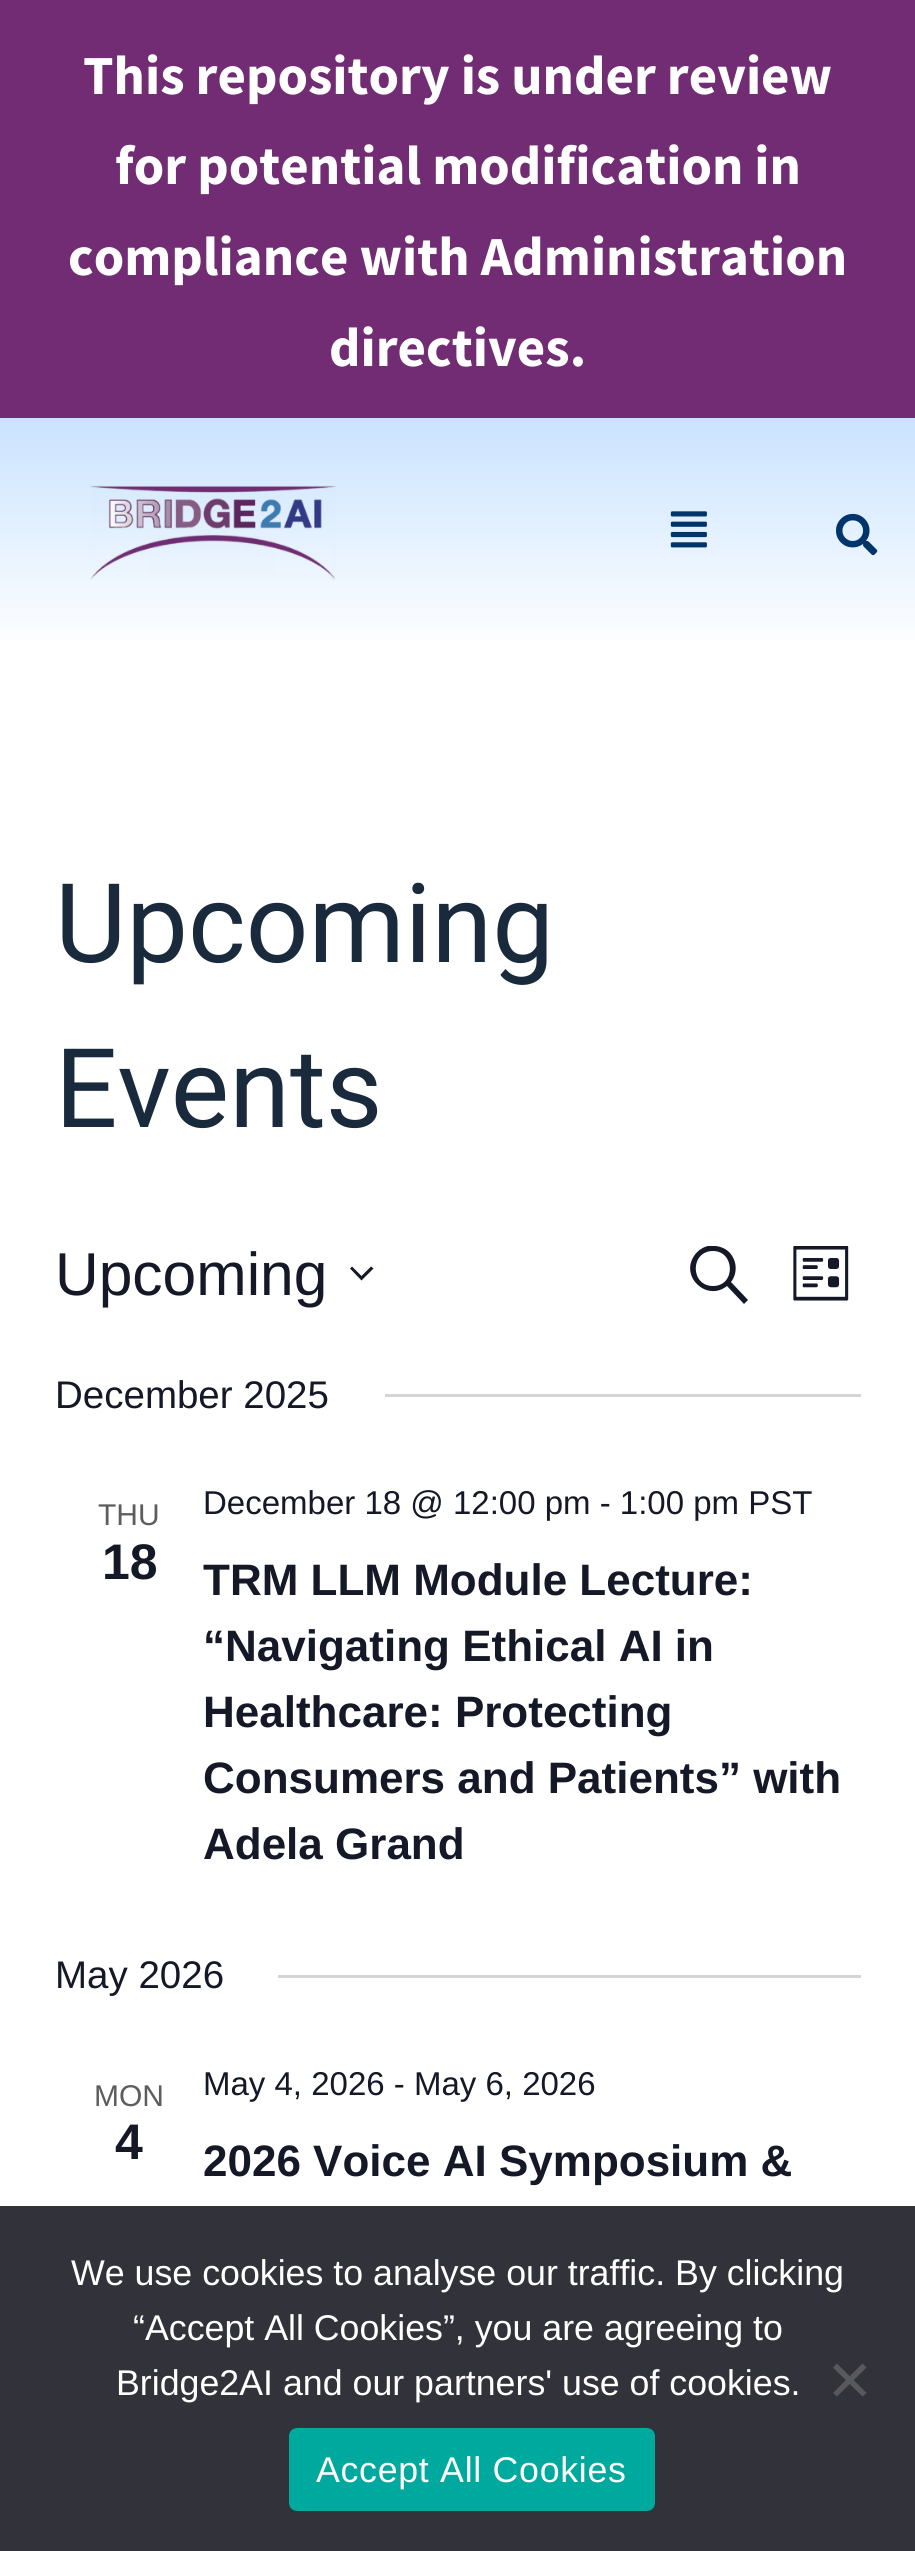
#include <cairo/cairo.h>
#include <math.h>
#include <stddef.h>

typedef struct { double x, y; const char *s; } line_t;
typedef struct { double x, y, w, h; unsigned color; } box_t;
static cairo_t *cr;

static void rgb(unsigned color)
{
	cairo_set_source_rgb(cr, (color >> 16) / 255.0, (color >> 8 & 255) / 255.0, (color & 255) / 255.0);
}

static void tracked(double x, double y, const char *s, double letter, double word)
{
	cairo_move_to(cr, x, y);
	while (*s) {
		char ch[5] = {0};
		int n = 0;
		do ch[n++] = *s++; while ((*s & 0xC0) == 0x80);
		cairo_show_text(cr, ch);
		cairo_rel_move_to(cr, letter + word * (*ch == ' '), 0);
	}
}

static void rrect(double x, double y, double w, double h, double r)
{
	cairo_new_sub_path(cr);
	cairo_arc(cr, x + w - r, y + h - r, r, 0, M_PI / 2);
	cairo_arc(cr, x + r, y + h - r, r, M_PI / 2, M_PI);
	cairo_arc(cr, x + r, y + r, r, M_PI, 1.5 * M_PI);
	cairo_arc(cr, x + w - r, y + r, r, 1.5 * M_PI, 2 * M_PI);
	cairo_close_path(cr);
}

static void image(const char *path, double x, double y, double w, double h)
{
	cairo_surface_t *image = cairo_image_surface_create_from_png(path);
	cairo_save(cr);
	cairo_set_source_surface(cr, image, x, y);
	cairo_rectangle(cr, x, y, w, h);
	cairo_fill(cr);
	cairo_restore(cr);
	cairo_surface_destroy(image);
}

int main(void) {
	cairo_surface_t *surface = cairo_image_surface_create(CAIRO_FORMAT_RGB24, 915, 2551);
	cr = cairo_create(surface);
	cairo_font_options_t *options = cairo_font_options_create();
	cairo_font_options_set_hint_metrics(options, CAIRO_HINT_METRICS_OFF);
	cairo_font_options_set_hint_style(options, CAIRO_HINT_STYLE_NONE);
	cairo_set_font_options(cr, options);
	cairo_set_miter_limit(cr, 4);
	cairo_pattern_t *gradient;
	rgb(0xffffff);
	cairo_paint(cr);
	rgb(0x712c73);
	cairo_rectangle(cr, 0, 0, 915, 418);
	cairo_fill(cr);
	gradient = cairo_pattern_create_linear(458, 418, 458, 652);
	cairo_pattern_add_color_stop_rgba(gradient, 0, 0.792, 0.89, 1, 1);
	cairo_pattern_add_color_stop_rgba(gradient, 1, 1, 1, 1, 1);
	cairo_set_source(cr, gradient);
	cairo_pattern_destroy(gradient);
	cairo_rectangle(cr, 0, 418, 915, 223);
	cairo_fill(cr);
	image("img/1.png", 90, 485, 246, 95);
	image("img/2.png", 670, 511, 37, 37);
	image("img/3.png", 836, 513, 42, 43);
	rgb(0x141827);
	cairo_set_fill_rule(cr, CAIRO_FILL_RULE_EVEN_ODD);
	cairo_new_path(cr);
	cairo_move_to(cr, 352, 1266.5);
	cairo_line_to(cr, 361.5, 1276);
	cairo_line_to(cr, 371, 1266.5);
	cairo_line_to(cr, 373.5, 1268.5);
	cairo_line_to(cr, 361.5, 1280.5);
	cairo_line_to(cr, 350, 1268.5);
	cairo_close_path(cr);
	cairo_fill(cr);
	cairo_save(cr);
	cairo_set_fill_rule(cr, CAIRO_FILL_RULE_WINDING);
	cairo_rectangle(cr, 690, 1246, 58, 58);
	cairo_clip(cr);
	cairo_set_fill_rule(cr, CAIRO_FILL_RULE_EVEN_ODD);
	cairo_new_path(cr);
	cairo_move_to(cr, 731, 1282);
	cairo_line_to(cr, 748, 1300);
	cairo_line_to(cr, 744, 1304);
	cairo_line_to(cr, 727, 1286);
	cairo_curve_to(cr, 707, 1302, 680, 1277, 694, 1256);
	cairo_curve_to(cr, 697, 1251, 703, 1247, 708, 1246);
	cairo_curve_to(cr, 716, 1245, 724, 1247, 729, 1252);
	cairo_curve_to(cr, 737, 1260, 738, 1273, 731, 1282);
	cairo_close_path(cr);
	cairo_move_to(cr, 713, 1251);
	cairo_curve_to(cr, 690, 1251, 690, 1286, 713, 1286);
	cairo_curve_to(cr, 736, 1286, 735, 1251, 713, 1251);
	cairo_close_path(cr);
	cairo_fill(cr);
	cairo_restore(cr);
	image("img/4.png", 793, 1246, 56, 55);
	{
		static const box_t items[] = {
			{385, 1394, 476, 3, 0xd5d5d5},
			{278, 1975, 583, 3, 0xd5d5d5},
			{0, 2206, 915, 345, 0x32323a},
		};
		for (size_t i = 0; i < sizeof items / sizeof *items; i++) {
			rgb(items[i].color);
			cairo_rectangle(cr, items[i].x, items[i].y, items[i].w, items[i].h);
			cairo_fill(cr);
		}
	}
	rgb(0x59595d);
	cairo_set_fill_rule(cr, CAIRO_FILL_RULE_WINDING);
	cairo_new_path(cr);
	cairo_move_to(cr, 862.5, 2363.5);
	cairo_line_to(cr, 866.5, 2367.5);
	cairo_line_to(cr, 837, 2396.5);
	cairo_line_to(cr, 833, 2393);
	cairo_close_path(cr);
	cairo_fill(cr);
	cairo_new_path(cr);
	cairo_move_to(cr, 833, 2367.5);
	cairo_line_to(cr, 837, 2363.5);
	cairo_line_to(cr, 866.5, 2393);
	cairo_line_to(cr, 862.5, 2396.5);
	cairo_close_path(cr);
	cairo_fill(cr);
	rgb(0x00a99d);
	rrect(289, 2428, 366, 83, 8);
	cairo_fill(cr);
	cairo_select_font_face(cr, "Source Sans Pro", CAIRO_FONT_SLANT_NORMAL, CAIRO_FONT_WEIGHT_BOLD);
	cairo_set_font_size(cr, 55);
	rgb(0xffffff);
	{
		static const line_t items[] = {
			{83, 94, "This repository is under review"},
			{115, 184, "for potential modification in"},
			{68, 275, "compliance with Administration"},
			{329, 366, "directives."},
		};
		for (size_t i = 0; i < sizeof items / sizeof *items; i++) {
			cairo_move_to(cr, items[i].x, items[i].y);
			cairo_show_text(cr, items[i].s);
		}
	}
	cairo_select_font_face(cr, "Roboto", CAIRO_FONT_SLANT_NORMAL, CAIRO_FONT_WEIGHT_NORMAL);
	cairo_set_font_size(cr, 110);
	rgb(0x192a3d);
	cairo_move_to(cr, 55, 962);
	cairo_show_text(cr, "Upcoming");
	cairo_move_to(cr, 55, 1127);
	cairo_show_text(cr, "Events");
	cairo_select_font_face(cr, "Liberation Sans", CAIRO_FONT_SLANT_NORMAL, CAIRO_FONT_WEIGHT_NORMAL);
	cairo_set_font_size(cr, 60.5);
	rgb(0x141827);
	cairo_move_to(cr, 55, 1295);
	cairo_show_text(cr, "Upcoming");
	cairo_set_font_size(cr, 38.5);
	cairo_move_to(cr, 55, 1408);
	cairo_show_text(cr, "December 2025");
	cairo_set_font_size(cr, 30);
	rgb(0x5d5d5d);
	cairo_move_to(cr, 98, 1525);
	cairo_show_text(cr, "THU");
	cairo_select_font_face(cr, "Liberation Sans", CAIRO_FONT_SLANT_NORMAL, CAIRO_FONT_WEIGHT_BOLD);
	cairo_set_font_size(cr, 50);
	rgb(0x141827);
	cairo_move_to(cr, 102, 1579);
	cairo_show_text(cr, "18");
	cairo_select_font_face(cr, "Liberation Sans", CAIRO_FONT_SLANT_NORMAL, CAIRO_FONT_WEIGHT_NORMAL);
	cairo_set_font_size(cr, 33);
	cairo_move_to(cr, 203, 1514);
	cairo_show_text(cr, "December 18 @ 12:00 pm - 1:00 pm PST");
	cairo_select_font_face(cr, "Liberation Sans", CAIRO_FONT_SLANT_NORMAL, CAIRO_FONT_WEIGHT_BOLD);
	cairo_set_font_size(cr, 44);
	{
		static const line_t items[] = {
			{203, 1595, "TRM LLM Module Lecture:"},
			{203, 1661, "“Navigating Ethical AI in"},
			{203, 1727, "Healthcare: Protecting"},
			{203, 1793, "Consumers and Patients” with"},
			{203, 1859, "Adela Grand"},
		};
		for (size_t i = 0; i < sizeof items / sizeof *items; i++) {
			cairo_move_to(cr, items[i].x, items[i].y);
			cairo_show_text(cr, items[i].s);
		}
	}
	cairo_select_font_face(cr, "Liberation Sans", CAIRO_FONT_SLANT_NORMAL, CAIRO_FONT_WEIGHT_NORMAL);
	cairo_set_font_size(cr, 38.5);
	cairo_move_to(cr, 55, 1988);
	cairo_show_text(cr, "May 2026");
	cairo_set_font_size(cr, 30);
	rgb(0x5d5d5d);
	cairo_move_to(cr, 94, 2106);
	cairo_show_text(cr, "MON");
	cairo_select_font_face(cr, "Liberation Sans", CAIRO_FONT_SLANT_NORMAL, CAIRO_FONT_WEIGHT_BOLD);
	cairo_set_font_size(cr, 50);
	rgb(0x141827);
	cairo_move_to(cr, 115, 2159);
	cairo_show_text(cr, "4");
	cairo_select_font_face(cr, "Liberation Sans", CAIRO_FONT_SLANT_NORMAL, CAIRO_FONT_WEIGHT_NORMAL);
	cairo_set_font_size(cr, 33);
	cairo_move_to(cr, 203, 2095);
	cairo_show_text(cr, "May 4, 2026 - May 6, 2026");
	cairo_select_font_face(cr, "Liberation Sans", CAIRO_FONT_SLANT_NORMAL, CAIRO_FONT_WEIGHT_BOLD);
	cairo_set_font_size(cr, 44);
	cairo_move_to(cr, 203, 2176);
	cairo_show_text(cr, "2026 Voice AI Symposium &");
	cairo_select_font_face(cr, "Liberation Sans", CAIRO_FONT_SLANT_NORMAL, CAIRO_FONT_WEIGHT_NORMAL);
	cairo_set_font_size(cr, 35.75);
	rgb(0xffffff);
	{
		static const line_t items[] = {
			{71, 2285, "We use cookies to analyse our traffic. By clicking"},
			{133, 2340, "“Accept All Cookies”, you are agreeing to"},
			{116, 2395, "Bridge2AI and our partners' use of cookies."},
		};
		for (size_t i = 0; i < sizeof items / sizeof *items; i++) {
			cairo_move_to(cr, items[i].x, items[i].y);
			cairo_show_text(cr, items[i].s);
		}
	}
	tracked(316, 2482, "Accept All Cookies", 0.7, 0);
	cairo_surface_write_to_png(surface, "page.png");
	cairo_font_options_destroy(options);
	cairo_destroy(cr);
	cairo_surface_destroy(surface);
	return 0;
}
